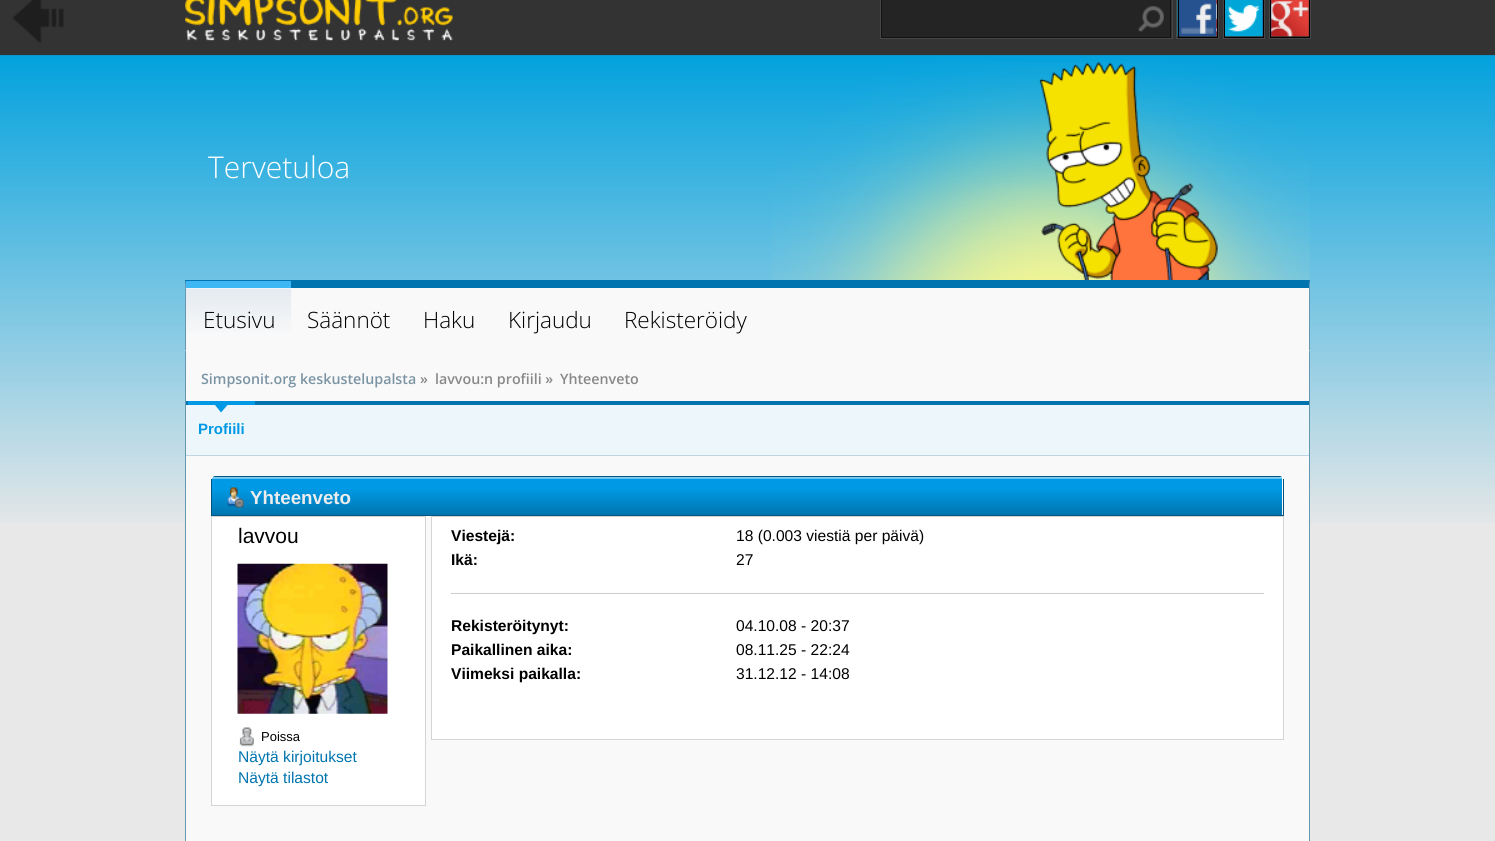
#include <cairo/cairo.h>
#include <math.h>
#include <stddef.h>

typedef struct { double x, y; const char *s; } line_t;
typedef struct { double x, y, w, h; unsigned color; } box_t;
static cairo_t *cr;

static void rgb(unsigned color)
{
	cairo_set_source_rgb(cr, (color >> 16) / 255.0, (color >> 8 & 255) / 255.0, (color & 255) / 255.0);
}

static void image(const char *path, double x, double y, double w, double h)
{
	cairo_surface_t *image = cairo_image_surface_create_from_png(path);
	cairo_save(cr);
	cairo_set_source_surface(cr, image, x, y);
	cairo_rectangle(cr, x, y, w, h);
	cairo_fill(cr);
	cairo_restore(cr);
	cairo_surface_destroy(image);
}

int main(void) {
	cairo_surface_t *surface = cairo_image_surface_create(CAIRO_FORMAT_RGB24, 1495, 841);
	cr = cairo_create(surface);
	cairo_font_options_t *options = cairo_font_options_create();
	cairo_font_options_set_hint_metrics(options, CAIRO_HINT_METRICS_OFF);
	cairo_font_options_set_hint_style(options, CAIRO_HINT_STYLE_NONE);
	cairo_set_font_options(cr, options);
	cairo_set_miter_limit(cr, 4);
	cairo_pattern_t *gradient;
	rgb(0xe8e8e8);
	cairo_paint(cr);
	image("img/1.png", 0, 55, 1495, 468);
	rgb(0x333333);
	cairo_rectangle(cr, 0, 0, 1495, 55);
	cairo_fill(cr);
	image("img/2.png", 12, 0, 52, 43);
	image("img/3.png", 185, 0, 268, 41);
	rgb(0x242424);
	cairo_rectangle(cr, 881.5, -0.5, 289, 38);
	cairo_fill_preserve(cr);
	rgb(0x121212);
	cairo_set_line_width(cr, 1);
	cairo_stroke(cr);
	cairo_rectangle(cr, 880.5, -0.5, 292, 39);
	rgb(0x474747);
	cairo_stroke(cr);
	image("img/4.png", 1138, 6, 26, 26);
	image("img/5.png", 1177, 0, 40, 37);
	cairo_rectangle(cr, 1178.5, -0.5, 39, 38);
	rgb(0x000000);
	cairo_stroke(cr);
	cairo_rectangle(cr, 1176.5, -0.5, 42, 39);
	rgb(0x474747);
	cairo_stroke(cr);
	image("img/6.png", 1225, 0, 38, 37);
	cairo_rectangle(cr, 1224.5, -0.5, 39, 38);
	rgb(0x000000);
	cairo_stroke(cr);
	cairo_rectangle(cr, 1223.5, -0.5, 41, 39);
	rgb(0x474747);
	cairo_stroke(cr);
	image("img/7.png", 1271, 0, 38, 37);
	cairo_rectangle(cr, 1270.5, -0.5, 39, 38);
	rgb(0x000000);
	cairo_stroke(cr);
	cairo_rectangle(cr, 1269.5, -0.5, 41, 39);
	rgb(0x474747);
	cairo_stroke(cr);
	image("img/8.png", 771, 62, 539, 218);
	rgb(0xf9f9f9);
	cairo_rectangle(cr, 185, 280, 1125, 71);
	cairo_fill(cr);
	rgb(0x0074ae);
	cairo_new_path(cr);
	cairo_move_to(cr, 185, 280);
	cairo_line_to(cr, 1310, 280);
	cairo_line_to(cr, 1309, 288);
	cairo_line_to(cr, 186, 288);
	cairo_close_path(cr);
	cairo_fill(cr);
	cairo_set_source_rgba(cr, 0, 0.333, 0.502, 0.6);
	cairo_new_path(cr);
	cairo_move_to(cr, 1310, 280);
	cairo_line_to(cr, 1310, 351);
	cairo_line_to(cr, 1309, 350);
	cairo_line_to(cr, 1309, 288);
	cairo_close_path(cr);
	cairo_fill(cr);
	cairo_new_path(cr);
	cairo_move_to(cr, 185, 351);
	cairo_line_to(cr, 185, 280);
	cairo_line_to(cr, 186, 288);
	cairo_line_to(cr, 186, 350);
	cairo_close_path(cr);
	cairo_fill(cr);
	gradient = cairo_pattern_create_linear(239, 288, 239, 338);
	cairo_pattern_add_color_stop_rgba(gradient, 0, 0.894, 0.918, 0.941, 1);
	cairo_pattern_add_color_stop_rgba(gradient, 1, 0.976, 0.976, 0.976, 1);
	cairo_set_source(cr, gradient);
	cairo_pattern_destroy(gradient);
	cairo_rectangle(cr, 186, 289, 105, 43);
	cairo_fill(cr);
	{
		static const box_t items[] = {
			{186, 288, 105, 1, 0xeff2f6},
			{186, 281, 105, 7, 0x3db8f5},
			{186, 351, 1123, 50, 0xf9f9f9},
			{1309, 351, 1, 490, 0x6497b0},
			{185, 351, 1, 490, 0x6497b0},
			{186, 456, 1123, 385, 0xf9f9f9},
			{186, 405, 1123, 50, 0xedf6fa},
			{186, 401, 1123, 4, 0x0074ae},
			{186, 455, 1123, 1, 0xbed6e2},
			{188, 401, 67, 4, 0x0099e5},
		};
		for (size_t i = 0; i < sizeof items / sizeof *items; i++) {
			rgb(items[i].color);
			cairo_rectangle(cr, items[i].x, items[i].y, items[i].w, items[i].h);
			cairo_fill(cr);
		}
	}
	cairo_new_path(cr);
	cairo_move_to(cr, 215, 405);
	cairo_line_to(cr, 227.5, 405);
	cairo_line_to(cr, 221, 412.5);
	cairo_close_path(cr);
	cairo_fill(cr);
	gradient = cairo_pattern_create_linear(748, 476, 748, 515);
	cairo_pattern_add_color_stop_rgba(gradient, 0.3, 0, 0.6, 0.898, 1);
	cairo_pattern_add_color_stop_rgba(gradient, 1, 0, 0.455, 0.678, 1);
	cairo_set_source(cr, gradient);
	cairo_pattern_destroy(gradient);
	cairo_new_path(cr);
	cairo_move_to(cr, 215, 476);
	cairo_line_to(cr, 1280, 476);
	cairo_curve_to(cr, 1281, 476, 1282, 478, 1282, 480);
	cairo_line_to(cr, 1282, 515);
	cairo_line_to(cr, 212, 515);
	cairo_line_to(cr, 212, 480);
	cairo_curve_to(cr, 212, 478, 214, 476, 215, 476);
	cairo_close_path(cr);
	cairo_fill(cr);
	cairo_set_source_rgba(cr, 1, 1, 1, 0.5);
	cairo_new_path(cr);
	cairo_move_to(cr, 215, 478);
	cairo_line_to(cr, 1280, 478);
	cairo_curve_to(cr, 1281, 478, 1282, 479, 1282, 481);
	cairo_line_to(cr, 1282, 515);
	cairo_line_to(cr, 1282, 480);
	cairo_curve_to(cr, 1282, 478, 1281, 476, 1280, 476);
	cairo_line_to(cr, 215, 476);
	cairo_curve_to(cr, 214, 476, 213, 478, 213, 479);
	cairo_close_path(cr);
	cairo_fill(cr);
	{
		static const box_t items[] = {
			{1283, 479, 1, 37, 0x005580},
			{211, 515, 1073, 1, 0x005580},
			{211, 479, 1, 37, 0x005580},
		};
		for (size_t i = 0; i < sizeof items / sizeof *items; i++) {
			rgb(items[i].color);
			cairo_rectangle(cr, items[i].x, items[i].y, items[i].w, items[i].h);
			cairo_fill(cr);
		}
	}
	gradient = cairo_pattern_create_linear(748, 477, 748, 516);
	cairo_pattern_add_color_stop_rgba(gradient, 0.3, 0, 0.6, 0.898, 1);
	cairo_pattern_add_color_stop_rgba(gradient, 1, 0, 0.455, 0.678, 1);
	cairo_set_source(cr, gradient);
	cairo_pattern_destroy(gradient);
	cairo_new_path(cr);
	cairo_move_to(cr, 213, 478);
	cairo_line_to(cr, 1282, 478);
	cairo_line_to(cr, 1282, 492);
	cairo_line_to(cr, 1282, 515);
	cairo_line_to(cr, 213, 515);
	cairo_close_path(cr);
	cairo_fill(cr);
	rgb(0x66c2ef);
	cairo_rectangle(cr, 213, 478, 1069, 1);
	cairo_fill(cr);
	rgb(0x005580);
	cairo_new_path(cr);
	cairo_move_to(cr, 215, 476);
	cairo_line_to(cr, 1280, 476);
	cairo_line_to(cr, 1282, 477);
	cairo_line_to(cr, 213, 477);
	cairo_close_path(cr);
	cairo_fill(cr);
	image("img/9.png", 227, 487, 17, 21);
	rgb(0xffffff);
	cairo_rectangle(cr, 211.5, 516.5, 214, 289);
	cairo_fill_preserve(cr);
	rgb(0xd4d4d4);
	cairo_stroke(cr);
	image("img/10.png", 237, 563, 151, 151);
	image("img/11.png", 239, 727, 15, 20);
	rgb(0xffffff);
	cairo_rectangle(cr, 431.5, 516.5, 852, 223);
	cairo_fill_preserve(cr);
	rgb(0xd4d4d4);
	cairo_stroke(cr);
	rgb(0xcccccc);
	cairo_rectangle(cr, 451, 593, 813, 1);
	cairo_fill(cr);
	cairo_select_font_face(cr, "Open Sans Light", CAIRO_FONT_SLANT_NORMAL, CAIRO_FONT_WEIGHT_NORMAL);
	cairo_set_font_size(cr, 30);
	rgb(0xffffff);
	cairo_move_to(cr, 208, 178);
	cairo_show_text(cr, "Tervetuloa");
	cairo_set_font_size(cr, 22.5);
	rgb(0x000000);
	{
		static const line_t items[] = {
			{203, 328, "Etusivu"},
			{307, 328, "Säännöt"},
			{423, 328, "Haku"},
			{508, 328, "Kirjaudu"},
			{624, 328, "Rekisteröidy"},
		};
		for (size_t i = 0; i < sizeof items / sizeof *items; i++) {
			cairo_move_to(cr, items[i].x, items[i].y);
			cairo_show_text(cr, items[i].s);
		}
	}
	cairo_select_font_face(cr, "Open Sans SemiBold", CAIRO_FONT_SLANT_NORMAL, CAIRO_FONT_WEIGHT_NORMAL);
	cairo_set_font_size(cr, 14.25);
	rgb(0x7b94a4);
	cairo_move_to(cr, 201, 384);
	cairo_show_text(cr, "Simpsonit.org keskustelupalsta");
	rgb(0x888888);
	{
		static const line_t items[] = {
			{420, 384, "»"},
			{435, 384, "lavvou:n profiili »"},
			{560, 384, "Yhteenveto"},
		};
		for (size_t i = 0; i < sizeof items / sizeof *items; i++) {
			cairo_move_to(cr, items[i].x, items[i].y);
			cairo_show_text(cr, items[i].s);
		}
	}
	cairo_select_font_face(cr, "Liberation Sans", CAIRO_FONT_SLANT_NORMAL, CAIRO_FONT_WEIGHT_BOLD);
	cairo_set_font_size(cr, 15);
	rgb(0x0099e5);
	cairo_move_to(cr, 198, 434);
	cairo_show_text(cr, "Profiili");
	cairo_set_font_size(cr, 18.75);
	rgb(0xededed);
	cairo_move_to(cr, 250, 504);
	cairo_show_text(cr, "Yhteenveto");
	cairo_select_font_face(cr, "Liberation Sans", CAIRO_FONT_SLANT_NORMAL, CAIRO_FONT_WEIGHT_NORMAL);
	cairo_set_font_size(cr, 21);
	rgb(0x000000);
	cairo_move_to(cr, 238, 543);
	cairo_show_text(cr, "lavvou");
	cairo_set_font_size(cr, 13);
	cairo_move_to(cr, 261, 741);
	cairo_show_text(cr, "Poissa");
	cairo_set_font_size(cr, 15.6);
	rgb(0x0074ae);
	cairo_move_to(cr, 238, 762);
	cairo_show_text(cr, "Näytä kirjoitukset");
	cairo_move_to(cr, 238, 783);
	cairo_show_text(cr, "Näytä tilastot");
	cairo_select_font_face(cr, "Liberation Sans", CAIRO_FONT_SLANT_NORMAL, CAIRO_FONT_WEIGHT_BOLD);
	rgb(0x000000);
	cairo_move_to(cr, 451, 541);
	cairo_show_text(cr, "Viestejä:");
	cairo_select_font_face(cr, "Liberation Sans", CAIRO_FONT_SLANT_NORMAL, CAIRO_FONT_WEIGHT_NORMAL);
	cairo_move_to(cr, 736, 541);
	cairo_show_text(cr, "18 (0.003 viestiä per päivä)");
	cairo_select_font_face(cr, "Liberation Sans", CAIRO_FONT_SLANT_NORMAL, CAIRO_FONT_WEIGHT_BOLD);
	cairo_move_to(cr, 451, 565);
	cairo_show_text(cr, "Ikä:");
	cairo_select_font_face(cr, "Liberation Sans", CAIRO_FONT_SLANT_NORMAL, CAIRO_FONT_WEIGHT_NORMAL);
	cairo_move_to(cr, 736, 565);
	cairo_show_text(cr, "27");
	cairo_select_font_face(cr, "Liberation Sans", CAIRO_FONT_SLANT_NORMAL, CAIRO_FONT_WEIGHT_BOLD);
	cairo_move_to(cr, 451, 631);
	cairo_show_text(cr, "Rekisteröitynyt:");
	cairo_select_font_face(cr, "Liberation Sans", CAIRO_FONT_SLANT_NORMAL, CAIRO_FONT_WEIGHT_NORMAL);
	cairo_move_to(cr, 736, 631);
	cairo_show_text(cr, "04.10.08 - 20:37");
	cairo_select_font_face(cr, "Liberation Sans", CAIRO_FONT_SLANT_NORMAL, CAIRO_FONT_WEIGHT_BOLD);
	cairo_move_to(cr, 451, 655);
	cairo_show_text(cr, "Paikallinen aika:");
	cairo_select_font_face(cr, "Liberation Sans", CAIRO_FONT_SLANT_NORMAL, CAIRO_FONT_WEIGHT_NORMAL);
	cairo_move_to(cr, 736, 655);
	cairo_show_text(cr, "08.11.25 - 22:24");
	cairo_select_font_face(cr, "Liberation Sans", CAIRO_FONT_SLANT_NORMAL, CAIRO_FONT_WEIGHT_BOLD);
	cairo_move_to(cr, 451, 679);
	cairo_show_text(cr, "Viimeksi paikalla:");
	cairo_select_font_face(cr, "Liberation Sans", CAIRO_FONT_SLANT_NORMAL, CAIRO_FONT_WEIGHT_NORMAL);
	cairo_move_to(cr, 736, 679);
	cairo_show_text(cr, "31.12.12 - 14:08");
	cairo_surface_write_to_png(surface, "page.png");
	cairo_font_options_destroy(options);
	cairo_destroy(cr);
	cairo_surface_destroy(surface);
	return 0;
}
